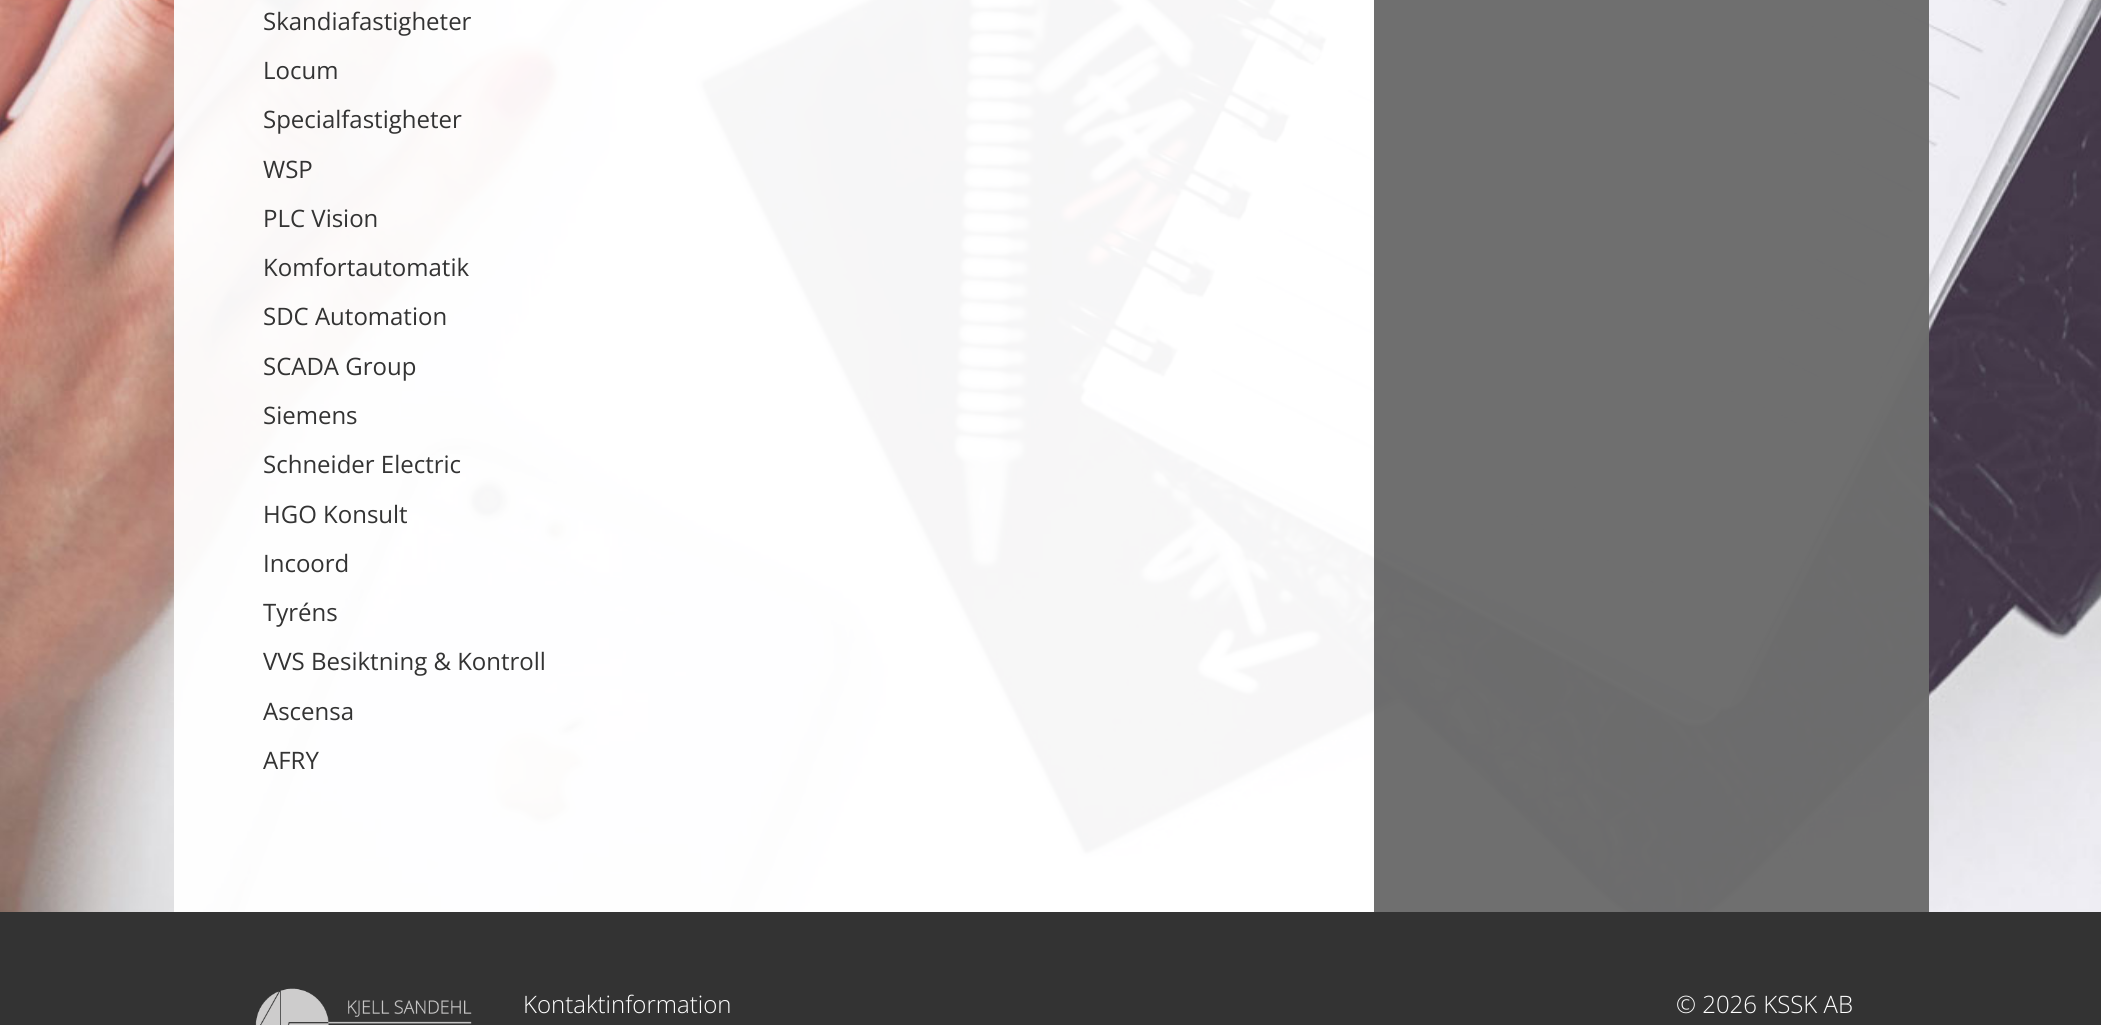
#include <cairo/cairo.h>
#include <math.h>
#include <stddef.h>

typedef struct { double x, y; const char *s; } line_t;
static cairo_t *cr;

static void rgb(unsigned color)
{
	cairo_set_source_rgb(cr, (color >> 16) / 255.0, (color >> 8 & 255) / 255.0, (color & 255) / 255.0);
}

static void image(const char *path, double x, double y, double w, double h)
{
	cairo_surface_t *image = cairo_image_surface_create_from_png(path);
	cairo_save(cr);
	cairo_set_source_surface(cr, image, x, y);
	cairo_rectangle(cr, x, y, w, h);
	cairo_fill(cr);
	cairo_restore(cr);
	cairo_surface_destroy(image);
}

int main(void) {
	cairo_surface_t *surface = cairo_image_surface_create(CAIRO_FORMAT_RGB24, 2101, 1025);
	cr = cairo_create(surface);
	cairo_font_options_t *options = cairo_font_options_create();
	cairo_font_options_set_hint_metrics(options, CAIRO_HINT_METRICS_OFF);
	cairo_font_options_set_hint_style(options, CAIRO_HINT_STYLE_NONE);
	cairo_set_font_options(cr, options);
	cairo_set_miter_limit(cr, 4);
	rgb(0xffffff);
	cairo_paint(cr);
	image("img/1.png", 0, 0, 2101, 912);
	cairo_set_source_rgba(cr, 1, 1, 1, 0.95);
	cairo_rectangle(cr, 174, 0, 1755, 912);
	cairo_fill(cr);
	cairo_set_source_rgba(cr, 0.2, 0.2, 0.2, 0.7);
	cairo_rectangle(cr, 1374, 0, 555, 912);
	cairo_fill(cr);
	rgb(0x333333);
	cairo_rectangle(cr, 0, 912, 2101, 113);
	cairo_fill(cr);
	image("img/2.png", 255, 988, 217, 37);
	cairo_select_font_face(cr, "Open Sans", CAIRO_FONT_SLANT_NORMAL, CAIRO_FONT_WEIGHT_NORMAL);
	cairo_set_font_size(cr, 24);
	{
		static const line_t items[] = {
			{263, 30, "Skandiafastigheter"},
			{263, 79, "Locum"},
			{263, 128, "Specialfastigheter"},
			{263, 178, "WSP"},
			{263, 227, "PLC Vision"},
			{263, 276, "Komfortautomatik"},
			{263, 325, "SDC Automation"},
			{263, 375, "SCADA Group"},
			{263, 424, "Siemens"},
			{263, 473, "Schneider Electric"},
			{263, 523, "HGO Konsult"},
			{263, 572, "Incoord"},
			{263, 621, "Tyréns"},
			{263, 670, "VVS Besiktning & Kontroll"},
			{263, 720, "Ascensa"},
			{263, 769, "AFRY"},
		};
		for (size_t i = 0; i < sizeof items / sizeof *items; i++) {
			cairo_move_to(cr, items[i].x, items[i].y);
			cairo_show_text(cr, items[i].s);
		}
	}
	cairo_select_font_face(cr, "Open Sans Light", CAIRO_FONT_SLANT_NORMAL, CAIRO_FONT_WEIGHT_NORMAL);
	rgb(0xffffff);
	cairo_move_to(cr, 523, 1013);
	cairo_show_text(cr, "Kontaktinformation");
	cairo_move_to(cr, 1676, 1013);
	cairo_show_text(cr, "© 2026 KSSK AB");
	cairo_surface_write_to_png(surface, "page.png");
	cairo_font_options_destroy(options);
	cairo_destroy(cr);
	cairo_surface_destroy(surface);
	return 0;
}
